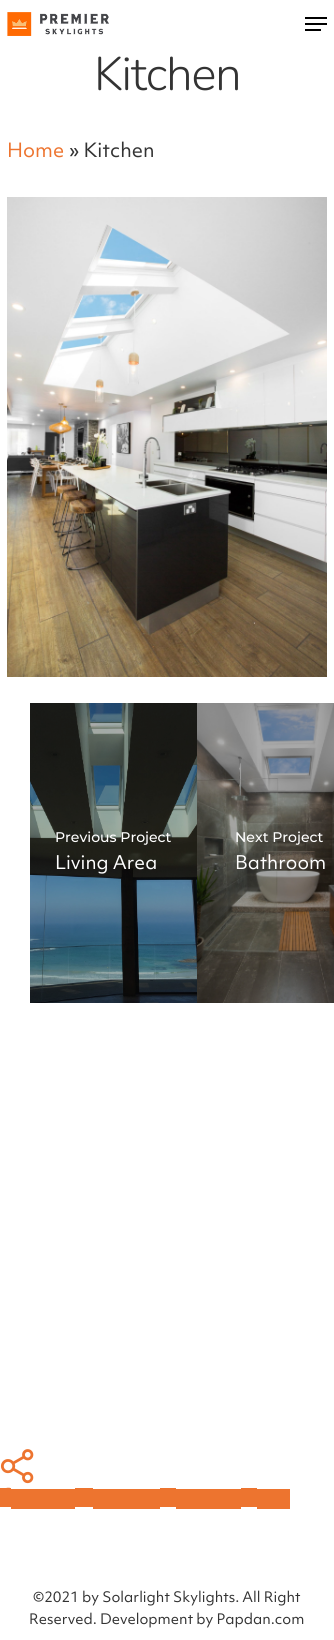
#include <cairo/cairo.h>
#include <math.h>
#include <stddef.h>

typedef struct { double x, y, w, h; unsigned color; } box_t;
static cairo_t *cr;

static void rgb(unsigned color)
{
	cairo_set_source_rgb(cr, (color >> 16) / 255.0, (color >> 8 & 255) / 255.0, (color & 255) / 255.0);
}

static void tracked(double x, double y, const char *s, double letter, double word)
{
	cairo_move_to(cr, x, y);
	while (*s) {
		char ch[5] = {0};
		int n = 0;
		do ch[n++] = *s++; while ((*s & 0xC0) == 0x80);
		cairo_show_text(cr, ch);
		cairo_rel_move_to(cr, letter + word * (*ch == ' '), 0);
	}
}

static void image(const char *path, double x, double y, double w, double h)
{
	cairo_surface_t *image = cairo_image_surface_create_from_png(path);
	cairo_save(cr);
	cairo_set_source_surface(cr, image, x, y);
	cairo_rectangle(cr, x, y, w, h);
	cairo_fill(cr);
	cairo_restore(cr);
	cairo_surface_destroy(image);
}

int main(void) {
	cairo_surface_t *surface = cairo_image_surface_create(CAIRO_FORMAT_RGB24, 334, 1640);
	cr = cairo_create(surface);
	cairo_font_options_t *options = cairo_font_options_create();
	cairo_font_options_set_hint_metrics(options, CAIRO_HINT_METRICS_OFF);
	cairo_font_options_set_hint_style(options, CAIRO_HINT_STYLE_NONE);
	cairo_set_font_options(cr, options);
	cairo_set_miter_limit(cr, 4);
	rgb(0xffffff);
	cairo_paint(cr);
	image("img/1.png", 7, 12, 102, 24);
	{
		static const box_t items[] = {
			{305, 17, 22, 2, 0x000000},
			{305, 29, 16, 2, 0x000000},
			{305, 23, 22, 2, 0x000000},
		};
		for (size_t i = 0; i < sizeof items / sizeof *items; i++) {
			rgb(items[i].color);
			cairo_rectangle(cr, items[i].x, items[i].y, items[i].w, items[i].h);
			cairo_fill(cr);
		}
	}
	image("img/2.png", 7, 197, 320, 480);
	image("img/3.png", 30, 703, 167, 300);
	image("img/4.png", 197, 703, 137, 300);
	image("img/5.png", 0, 1449, 34, 35);
	rgb(0xed742f);
	cairo_rectangle(cr, 0, 1488, 11, 19);
	cairo_fill(cr);
	cairo_rectangle(cr, 11, 1489, 64, 20);
	cairo_fill(cr);
	image("img/6.png", 6, 1487, 5, 1);
	{
		static const box_t items[] = {
			{75, 1488, 18, 19, 0xed742f},
			{93, 1489, 67, 20, 0xed742f},
			{160, 1488, 16, 19, 0xed742f},
			{176, 1489, 65, 20, 0xed742f},
			{241, 1488, 16, 19, 0xed742f},
			{257, 1489, 33, 20, 0xed742f},
		};
		for (size_t i = 0; i < sizeof items / sizeof *items; i++) {
			rgb(items[i].color);
			cairo_rectangle(cr, items[i].x, items[i].y, items[i].w, items[i].h);
			cairo_fill(cr);
		}
	}
	cairo_select_font_face(cr, "Nunito Light", CAIRO_FONT_SLANT_NORMAL, CAIRO_FONT_WEIGHT_NORMAL);
	cairo_set_font_size(cr, 47);
	rgb(0x333333);
	tracked(94, 90, "Kitchen", -1, 0);
	cairo_select_font_face(cr, "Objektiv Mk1", CAIRO_FONT_SLANT_NORMAL, CAIRO_FONT_WEIGHT_NORMAL);
	cairo_set_font_size(cr, 19);
	rgb(0xed742f);
	cairo_move_to(cr, 7, 157);
	cairo_show_text(cr, "Home");
	rgb(0x333333);
	cairo_move_to(cr, 69, 157);
	cairo_show_text(cr, "» Kitchen");
	cairo_select_font_face(cr, "Montserrat Thin", CAIRO_FONT_SLANT_NORMAL, CAIRO_FONT_WEIGHT_NORMAL);
	cairo_set_font_size(cr, 14);
	rgb(0xffffff);
	cairo_move_to(cr, 55, 842);
	cairo_show_text(cr, "Previous Project");
	cairo_select_font_face(cr, "Objektiv Mk1", CAIRO_FONT_SLANT_NORMAL, CAIRO_FONT_WEIGHT_NORMAL);
	cairo_set_font_size(cr, 18.25);
	cairo_move_to(cr, 55, 869);
	cairo_show_text(cr, "Living Area");
	cairo_select_font_face(cr, "Montserrat Thin", CAIRO_FONT_SLANT_NORMAL, CAIRO_FONT_WEIGHT_NORMAL);
	cairo_set_font_size(cr, 14);
	cairo_move_to(cr, 235, 842);
	cairo_show_text(cr, "Next Project");
	cairo_select_font_face(cr, "Objektiv Mk1", CAIRO_FONT_SLANT_NORMAL, CAIRO_FONT_WEIGHT_NORMAL);
	cairo_set_font_size(cr, 18.25);
	cairo_move_to(cr, 235, 869);
	cairo_show_text(cr, "Bathroom");
	cairo_set_font_size(cr, 14);
	rgb(0x333333);
	cairo_move_to(cr, 33, 1602);
	cairo_show_text(cr, "©2021 by Solarlight Skylights. All Right");
	cairo_move_to(cr, 29, 1624);
	cairo_show_text(cr, "Reserved. Development by Papdan.com");
	cairo_surface_write_to_png(surface, "page.png");
	cairo_font_options_destroy(options);
	cairo_destroy(cr);
	cairo_surface_destroy(surface);
	return 0;
}
